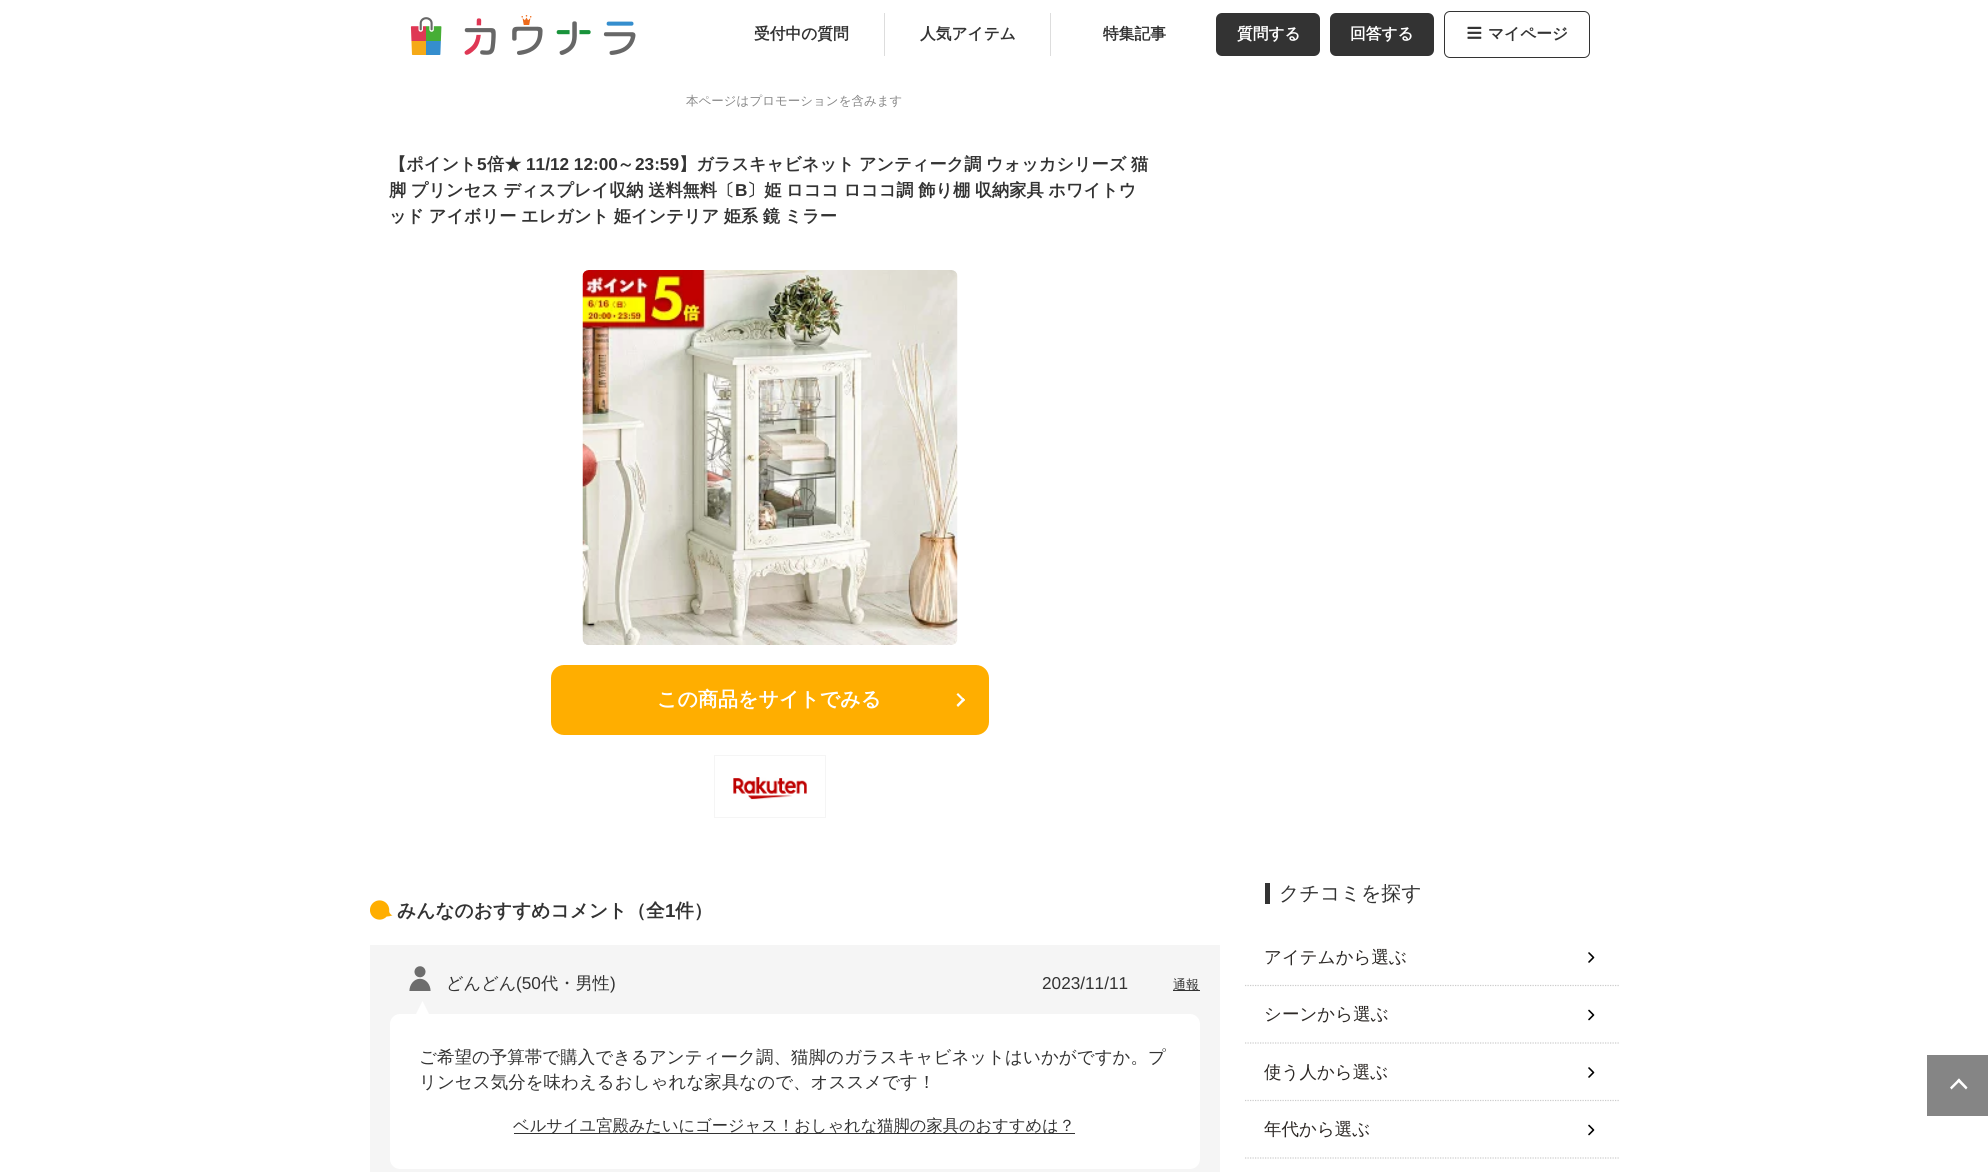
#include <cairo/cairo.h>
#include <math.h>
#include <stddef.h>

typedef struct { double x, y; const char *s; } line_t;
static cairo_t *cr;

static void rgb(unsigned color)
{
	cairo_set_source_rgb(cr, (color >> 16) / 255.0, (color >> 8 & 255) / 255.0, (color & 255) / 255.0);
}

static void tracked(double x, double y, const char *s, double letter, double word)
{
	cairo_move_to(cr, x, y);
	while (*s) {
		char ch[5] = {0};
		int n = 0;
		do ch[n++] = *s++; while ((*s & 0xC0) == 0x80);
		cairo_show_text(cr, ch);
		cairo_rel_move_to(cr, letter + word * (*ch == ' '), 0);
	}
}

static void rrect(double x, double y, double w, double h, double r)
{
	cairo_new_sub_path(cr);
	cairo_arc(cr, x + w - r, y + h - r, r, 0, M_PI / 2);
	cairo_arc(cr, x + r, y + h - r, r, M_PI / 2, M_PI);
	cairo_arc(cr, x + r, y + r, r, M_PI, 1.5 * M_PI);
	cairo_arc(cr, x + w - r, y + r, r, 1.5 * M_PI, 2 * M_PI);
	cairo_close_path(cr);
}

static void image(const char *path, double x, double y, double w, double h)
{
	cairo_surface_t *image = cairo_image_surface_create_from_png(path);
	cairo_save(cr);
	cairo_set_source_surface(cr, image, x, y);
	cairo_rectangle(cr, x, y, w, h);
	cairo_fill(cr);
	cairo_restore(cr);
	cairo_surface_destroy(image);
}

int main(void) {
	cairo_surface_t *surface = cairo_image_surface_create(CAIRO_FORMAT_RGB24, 1988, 1172);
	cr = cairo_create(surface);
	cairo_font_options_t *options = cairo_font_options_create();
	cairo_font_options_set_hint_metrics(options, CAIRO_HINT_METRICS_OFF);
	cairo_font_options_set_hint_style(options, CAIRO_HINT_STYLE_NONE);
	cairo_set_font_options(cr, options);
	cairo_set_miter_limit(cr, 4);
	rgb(0xffffff);
	cairo_paint(cr);
	image("img/1.png", 410, 15, 226, 40);
	rgb(0xdddddd);
	cairo_rectangle(cr, 884, 13, 1, 43);
	cairo_fill(cr);
	cairo_rectangle(cr, 1050, 13, 1, 43);
	cairo_fill(cr);
	rgb(0x333333);
	rrect(1216, 13, 104, 43, 6);
	cairo_fill(cr);
	rrect(1330, 13, 104, 43, 6);
	cairo_fill(cr);
	rrect(1444.5, 11.5, 145, 46, 5.5);
	cairo_set_line_width(cr, 1);
	cairo_stroke(cr);
	image("img/2.png", 1467, 26, 15, 13);
	image("img/3.png", 582, 270, 376, 375);
	rgb(0xffae00);
	rrect(551, 665, 438, 70, 13);
	cairo_fill(cr);
	rgb(0xffffff);
	cairo_new_path(cr);
	cairo_move_to(cr, 956.5, 694.5);
	cairo_line_to(cr, 958, 693);
	cairo_line_to(cr, 965, 700);
	cairo_line_to(cr, 963.5, 701.5);
	cairo_close_path(cr);
	cairo_fill(cr);
	cairo_new_path(cr);
	cairo_move_to(cr, 956.5, 705);
	cairo_line_to(cr, 963.5, 698);
	cairo_line_to(cr, 965, 700);
	cairo_line_to(cr, 958, 707);
	cairo_close_path(cr);
	cairo_fill(cr);
	cairo_rectangle(cr, 714.5, 755.5, 111, 62);
	rgb(0xf5f5f5);
	cairo_stroke(cr);
	image("img/4.png", 733, 777, 74, 23);
	image("img/5.png", 370, 900, 23, 20);
	cairo_rectangle(cr, 370, 945, 850, 227);
	cairo_fill(cr);
	image("img/6.png", 409, 966, 22, 25);
	rgb(0x333333);
	cairo_rectangle(cr, 1173, 990, 27, 1);
	cairo_fill(cr);
	rgb(0xffffff);
	rrect(390, 1014, 810, 155, 10);
	cairo_fill(cr);
	cairo_new_path(cr);
	cairo_move_to(cr, 429, 1014);
	cairo_line_to(cr, 416, 1014);
	cairo_line_to(cr, 422.5, 1001);
	cairo_close_path(cr);
	cairo_fill(cr);
	rgb(0x333333);
	cairo_rectangle(cr, 514, 1133, 561, 1);
	cairo_fill(cr);
	cairo_rectangle(cr, 1265, 883, 5, 21);
	cairo_fill(cr);
	cairo_new_path(cr);
	cairo_move_to(cr, 1245, 985.5);
	cairo_line_to(cr, 1620, 985.5);
	rgb(0xcccccc);
	cairo_set_line_width(cr, 1.2);
	cairo_set_dash(cr, (double[]){1.25, 1.25}, 2, 0);
	cairo_stroke(cr);
	cairo_new_path(cr);
	cairo_move_to(cr, 1589, 953);
	cairo_line_to(cr, 1593.5, 957.5);
	cairo_line_to(cr, 1589, 962);
	rgb(0x000000);
	cairo_set_line_width(cr, 1.6);
	cairo_set_line_cap(cr, CAIRO_LINE_CAP_ROUND);
	cairo_set_line_join(cr, CAIRO_LINE_JOIN_ROUND);
	cairo_set_dash(cr, NULL, 0, 0);
	cairo_stroke(cr);
	cairo_new_path(cr);
	cairo_move_to(cr, 1245, 1043);
	cairo_line_to(cr, 1620, 1043);
	rgb(0xcccccc);
	cairo_set_line_width(cr, 1.2);
	cairo_set_line_cap(cr, CAIRO_LINE_CAP_BUTT);
	cairo_set_line_join(cr, CAIRO_LINE_JOIN_MITER);
	cairo_set_dash(cr, (double[]){1.25, 1.25}, 2, 0);
	cairo_stroke(cr);
	cairo_new_path(cr);
	cairo_move_to(cr, 1589, 1010.5);
	cairo_line_to(cr, 1593.5, 1015);
	cairo_line_to(cr, 1589, 1019.5);
	rgb(0x000000);
	cairo_set_line_width(cr, 1.6);
	cairo_set_line_cap(cr, CAIRO_LINE_CAP_ROUND);
	cairo_set_line_join(cr, CAIRO_LINE_JOIN_ROUND);
	cairo_set_dash(cr, NULL, 0, 0);
	cairo_stroke(cr);
	cairo_new_path(cr);
	cairo_move_to(cr, 1245, 1100.5);
	cairo_line_to(cr, 1620, 1100.5);
	rgb(0xcccccc);
	cairo_set_line_width(cr, 1.2);
	cairo_set_line_cap(cr, CAIRO_LINE_CAP_BUTT);
	cairo_set_line_join(cr, CAIRO_LINE_JOIN_MITER);
	cairo_set_dash(cr, (double[]){1.25, 1.25}, 2, 0);
	cairo_stroke(cr);
	cairo_new_path(cr);
	cairo_move_to(cr, 1589, 1068);
	cairo_line_to(cr, 1593.5, 1072.5);
	cairo_line_to(cr, 1589, 1077);
	rgb(0x000000);
	cairo_set_line_width(cr, 1.6);
	cairo_set_line_cap(cr, CAIRO_LINE_CAP_ROUND);
	cairo_set_line_join(cr, CAIRO_LINE_JOIN_ROUND);
	cairo_set_dash(cr, NULL, 0, 0);
	cairo_stroke(cr);
	cairo_new_path(cr);
	cairo_move_to(cr, 1245, 1158);
	cairo_line_to(cr, 1620, 1158);
	rgb(0xcccccc);
	cairo_set_line_width(cr, 1.2);
	cairo_set_line_cap(cr, CAIRO_LINE_CAP_BUTT);
	cairo_set_line_join(cr, CAIRO_LINE_JOIN_MITER);
	cairo_set_dash(cr, (double[]){1.25, 1.25}, 2, 0);
	cairo_stroke(cr);
	cairo_new_path(cr);
	cairo_move_to(cr, 1589, 1125.5);
	cairo_line_to(cr, 1593.5, 1130);
	cairo_line_to(cr, 1589, 1134.5);
	rgb(0x000000);
	cairo_set_line_width(cr, 1.6);
	cairo_set_line_cap(cr, CAIRO_LINE_CAP_ROUND);
	cairo_set_line_join(cr, CAIRO_LINE_JOIN_ROUND);
	cairo_set_dash(cr, NULL, 0, 0);
	cairo_stroke(cr);
	rgb(0x858585);
	cairo_rectangle(cr, 1927, 1055, 61, 61);
	cairo_fill(cr);
	rgb(0xffffff);
	cairo_new_path(cr);
	cairo_move_to(cr, 1959, 1078.5);
	cairo_line_to(cr, 1967.5, 1087.5);
	cairo_line_to(cr, 1966, 1089.5);
	cairo_line_to(cr, 1957, 1080.5);
	cairo_close_path(cr);
	cairo_fill(cr);
	cairo_new_path(cr);
	cairo_move_to(cr, 1959, 1078.5);
	cairo_line_to(cr, 1960.5, 1080.5);
	cairo_line_to(cr, 1951.5, 1089.5);
	cairo_line_to(cr, 1950, 1087.5);
	cairo_close_path(cr);
	cairo_fill(cr);
	cairo_select_font_face(cr, "WenQuanYi Zen Hei", CAIRO_FONT_SLANT_NORMAL, CAIRO_FONT_WEIGHT_BOLD);
	cairo_set_font_size(cr, 15.75);
	rgb(0x333333);
	{
		static const line_t items[] = {
			{754, 39, "受付中の質問"},
			{920, 39, "人気アイテム"},
			{1103, 39, "特集記事"},
		};
		for (size_t i = 0; i < sizeof items / sizeof *items; i++) {
			cairo_move_to(cr, items[i].x, items[i].y);
			cairo_show_text(cr, items[i].s);
		}
	}
	rgb(0xffffff);
	cairo_move_to(cr, 1237, 39);
	cairo_show_text(cr, "質問する");
	cairo_move_to(cr, 1350, 39);
	cairo_show_text(cr, "回答する");
	rgb(0x333333);
	cairo_move_to(cr, 1488, 39);
	cairo_show_text(cr, "マイページ");
	cairo_select_font_face(cr, "WenQuanYi Zen Hei Medium", CAIRO_FONT_SLANT_NORMAL, CAIRO_FONT_WEIGHT_NORMAL);
	cairo_set_font_size(cr, 12.5);
	rgb(0x868686);
	cairo_move_to(cr, 686, 105);
	cairo_show_text(cr, "本ページはプロモーションを含みます");
	cairo_select_font_face(cr, "WenQuanYi Zen Hei", CAIRO_FONT_SLANT_NORMAL, CAIRO_FONT_WEIGHT_BOLD);
	cairo_set_font_size(cr, 17.2);
	rgb(0x333333);
	cairo_move_to(cr, 389, 170);
	cairo_show_text(cr, "【ポイント");
	cairo_select_font_face(cr, "Liberation Sans", CAIRO_FONT_SLANT_NORMAL, CAIRO_FONT_WEIGHT_BOLD);
	cairo_move_to(cr, 477, 170);
	cairo_show_text(cr, "5");
	cairo_select_font_face(cr, "WenQuanYi Zen Hei", CAIRO_FONT_SLANT_NORMAL, CAIRO_FONT_WEIGHT_BOLD);
	cairo_move_to(cr, 487, 170);
	cairo_show_text(cr, "倍★");
	cairo_select_font_face(cr, "Liberation Sans", CAIRO_FONT_SLANT_NORMAL, CAIRO_FONT_WEIGHT_BOLD);
	cairo_move_to(cr, 526, 170);
	cairo_show_text(cr, "11/12 12:00");
	cairo_select_font_face(cr, "WenQuanYi Zen Hei", CAIRO_FONT_SLANT_NORMAL, CAIRO_FONT_WEIGHT_BOLD);
	cairo_move_to(cr, 617, 170);
	cairo_show_text(cr, "～");
	cairo_select_font_face(cr, "Liberation Sans", CAIRO_FONT_SLANT_NORMAL, CAIRO_FONT_WEIGHT_BOLD);
	cairo_move_to(cr, 635, 170);
	cairo_show_text(cr, "23:59");
	cairo_select_font_face(cr, "WenQuanYi Zen Hei", CAIRO_FONT_SLANT_NORMAL, CAIRO_FONT_WEIGHT_BOLD);
	{
		static const line_t items[] = {
			{679, 170, "】ガラスキャビネット"},
			{859, 170, "アンティーク調"},
			{986, 170, "ウォッカシリーズ"},
			{1131, 170, "猫"},
		};
		for (size_t i = 0; i < sizeof items / sizeof *items; i++) {
			cairo_move_to(cr, items[i].x, items[i].y);
			cairo_show_text(cr, items[i].s);
		}
	}
	tracked(389, 196, "脚 プリンセス ディスプレイ収納 送料無料〔", 0, -0.5);
	cairo_select_font_face(cr, "Liberation Sans", CAIRO_FONT_SLANT_NORMAL, CAIRO_FONT_WEIGHT_BOLD);
	cairo_move_to(cr, 735, 196);
	cairo_show_text(cr, "B");
	cairo_select_font_face(cr, "WenQuanYi Zen Hei", CAIRO_FONT_SLANT_NORMAL, CAIRO_FONT_WEIGHT_BOLD);
	tracked(747, 196, "〕姫 ロココ ロココ調 飾り棚 収納家具 ホワイトウ", 0, -0.5);
	tracked(389, 222, "ッド アイボリー エレガント 姫インテリア 姫系 鏡 ミラー", 0, -0.5);
	cairo_set_font_size(cr, 20);
	rgb(0xffffff);
	cairo_move_to(cr, 657, 706);
	cairo_show_text(cr, "この商品をサイトでみる");
	cairo_set_font_size(cr, 18.75);
	rgb(0x333333);
	cairo_move_to(cr, 397, 917);
	cairo_show_text(cr, "みんなのおすすめコメント（全");
	cairo_select_font_face(cr, "Liberation Sans", CAIRO_FONT_SLANT_NORMAL, CAIRO_FONT_WEIGHT_BOLD);
	cairo_move_to(cr, 665, 917);
	cairo_show_text(cr, "1");
	cairo_select_font_face(cr, "WenQuanYi Zen Hei", CAIRO_FONT_SLANT_NORMAL, CAIRO_FONT_WEIGHT_BOLD);
	cairo_move_to(cr, 675, 917);
	cairo_show_text(cr, "件）");
	cairo_select_font_face(cr, "WenQuanYi Zen Hei Medium", CAIRO_FONT_SLANT_NORMAL, CAIRO_FONT_WEIGHT_NORMAL);
	cairo_set_font_size(cr, 17.2);
	cairo_move_to(cr, 446, 989);
	cairo_show_text(cr, "どんどん");
	cairo_select_font_face(cr, "Liberation Sans", CAIRO_FONT_SLANT_NORMAL, CAIRO_FONT_WEIGHT_NORMAL);
	cairo_move_to(cr, 516, 989);
	cairo_show_text(cr, "(50");
	cairo_select_font_face(cr, "WenQuanYi Zen Hei Medium", CAIRO_FONT_SLANT_NORMAL, CAIRO_FONT_WEIGHT_NORMAL);
	cairo_move_to(cr, 541, 989);
	cairo_show_text(cr, "代・男性");
	cairo_select_font_face(cr, "Liberation Sans", CAIRO_FONT_SLANT_NORMAL, CAIRO_FONT_WEIGHT_NORMAL);
	cairo_move_to(cr, 610, 989);
	cairo_show_text(cr, ")");
	cairo_move_to(cr, 1042, 989);
	cairo_show_text(cr, "2023/11/11");
	cairo_select_font_face(cr, "WenQuanYi Zen Hei Medium", CAIRO_FONT_SLANT_NORMAL, CAIRO_FONT_WEIGHT_NORMAL);
	cairo_set_font_size(cr, 13);
	cairo_move_to(cr, 1173, 989);
	cairo_show_text(cr, "通報");
	cairo_set_font_size(cr, 17.5);
	cairo_move_to(cr, 419, 1063);
	cairo_show_text(cr, "ご希望の予算帯で購入できるアンティーク調、猫脚のガラスキャビネットはいかがですか。プ");
	cairo_move_to(cr, 419, 1088);
	cairo_show_text(cr, "リンセス気分を味わえるおしゃれな家具なので、オススメです！");
	cairo_set_font_size(cr, 16.25);
	cairo_move_to(cr, 513, 1131);
	cairo_show_text(cr, "ベルサイユ宮殿みたいにゴージャス！おしゃれな猫脚の家具のおすすめは？");
	cairo_set_font_size(cr, 20);
	cairo_move_to(cr, 1279, 900);
	cairo_show_text(cr, "クチコミを探す");
	cairo_set_font_size(cr, 17.5);
	rgb(0x2d2926);
	{
		static const line_t items[] = {
			{1264, 963, "アイテムから選ぶ"},
			{1264, 1020, "シーンから選ぶ"},
			{1264, 1078, "使う人から選ぶ"},
			{1264, 1135, "年代から選ぶ"},
		};
		for (size_t i = 0; i < sizeof items / sizeof *items; i++) {
			cairo_move_to(cr, items[i].x, items[i].y);
			cairo_show_text(cr, items[i].s);
		}
	}
	cairo_surface_write_to_png(surface, "page.png");
	cairo_font_options_destroy(options);
	cairo_destroy(cr);
	cairo_surface_destroy(surface);
	return 0;
}
